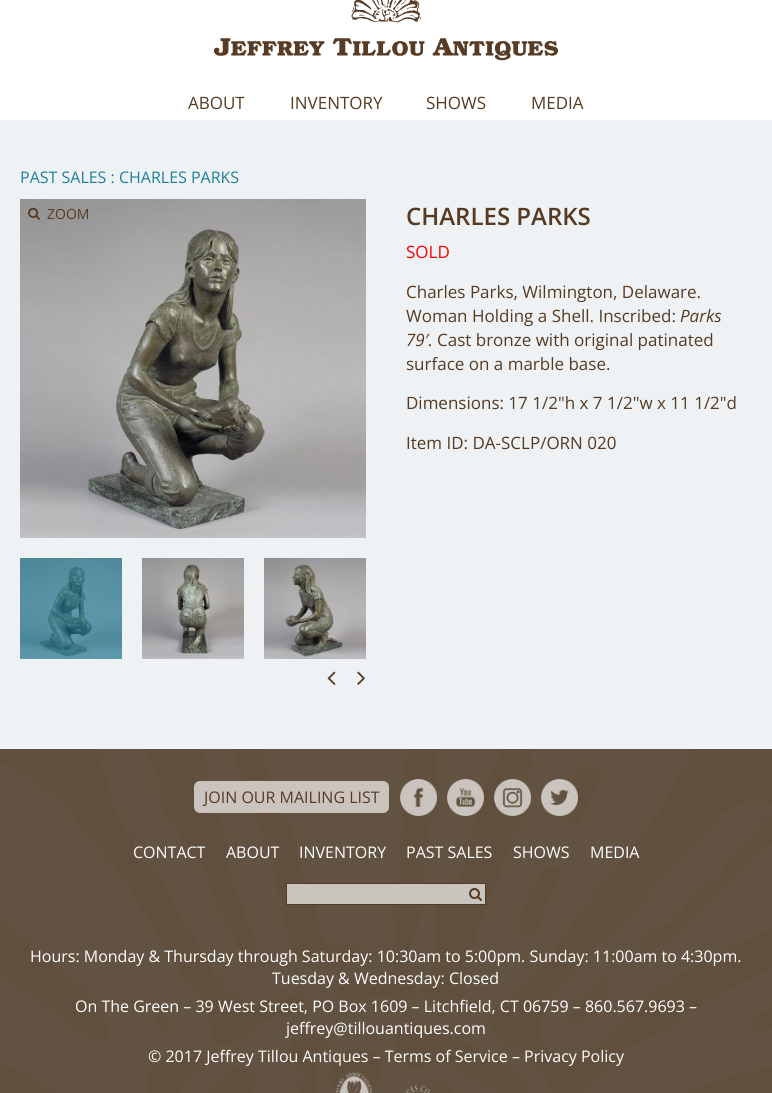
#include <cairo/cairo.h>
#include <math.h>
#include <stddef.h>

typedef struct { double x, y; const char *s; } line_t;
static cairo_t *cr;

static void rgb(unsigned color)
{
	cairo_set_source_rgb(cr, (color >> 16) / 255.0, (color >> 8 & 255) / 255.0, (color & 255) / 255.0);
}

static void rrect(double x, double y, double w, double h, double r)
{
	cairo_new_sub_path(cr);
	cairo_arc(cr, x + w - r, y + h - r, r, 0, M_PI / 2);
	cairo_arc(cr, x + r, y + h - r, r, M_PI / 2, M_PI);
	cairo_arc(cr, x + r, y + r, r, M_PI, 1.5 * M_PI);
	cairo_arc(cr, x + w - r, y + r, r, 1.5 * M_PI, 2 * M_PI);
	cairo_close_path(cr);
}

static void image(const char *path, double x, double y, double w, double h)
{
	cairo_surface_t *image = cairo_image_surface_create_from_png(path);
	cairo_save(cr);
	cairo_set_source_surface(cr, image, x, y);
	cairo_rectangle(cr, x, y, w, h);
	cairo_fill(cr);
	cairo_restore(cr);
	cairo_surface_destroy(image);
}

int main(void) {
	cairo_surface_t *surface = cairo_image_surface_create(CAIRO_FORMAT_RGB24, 772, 1093);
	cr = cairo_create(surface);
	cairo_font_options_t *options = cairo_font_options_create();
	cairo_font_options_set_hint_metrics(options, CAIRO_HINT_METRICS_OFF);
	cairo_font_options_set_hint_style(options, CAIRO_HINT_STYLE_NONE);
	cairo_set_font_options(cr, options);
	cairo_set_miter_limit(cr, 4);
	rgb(0xffffff);
	cairo_paint(cr);
	image("img/1.png", 214, 0, 344, 61);
	rgb(0xeef2f4);
	cairo_rectangle(cr, 0, 120, 772, 629);
	cairo_fill(cr);
	image("img/2.png", 20, 199, 346, 339);
	image("img/3.png", 28, 207, 12, 13);
	image("img/4.png", 20, 558, 102, 101);
	image("img/5.png", 142, 558, 102, 101);
	image("img/6.png", 264, 558, 102, 101);
	image("img/7.png", 327, 671, 9, 14);
	image("img/8.png", 357, 671, 8, 14);
	image("img/9.png", 0, 749, 772, 344);
	rgb(0xcbc4be);
	rrect(194, 781, 195, 32, 6);
	cairo_fill(cr);
	image("img/10.png", 400, 779, 37, 37);
	image("img/11.png", 447, 779, 37, 37);
	image("img/12.png", 494, 779, 37, 37);
	image("img/13.png", 541, 779, 37, 37);
	rgb(0xc9c4be);
	cairo_rectangle(cr, 286.5, 883.5, 199, 21);
	cairo_fill_preserve(cr);
	rgb(0x563a22);
	cairo_set_line_width(cr, 1);
	cairo_stroke(cr);
	image("img/14.png", 469, 888, 13, 13);
	image("img/15.png", 335, 1072, 38, 21);
	image("img/16.png", 404, 1085, 29, 8);
	cairo_select_font_face(cr, "Open Sans", CAIRO_FONT_SLANT_NORMAL, CAIRO_FONT_WEIGHT_NORMAL);
	cairo_set_font_size(cr, 17);
	{
		static const line_t items[] = {
			{188, 109, "ABOUT"},
			{290, 109, "INVENTORY"},
			{426, 109, "SHOWS"},
			{531, 109, "MEDIA"},
		};
		for (size_t i = 0; i < sizeof items / sizeof *items; i++) {
			cairo_move_to(cr, items[i].x, items[i].y);
			cairo_show_text(cr, items[i].s);
		}
	}
	cairo_set_font_size(cr, 16);
	rgb(0x1d7f9b);
	cairo_move_to(cr, 20, 183);
	cairo_show_text(cr, "PAST SALES : CHARLES PARKS");
	cairo_set_font_size(cr, 14);
	rgb(0x563a22);
	cairo_move_to(cr, 47, 219);
	cairo_show_text(cr, "ZOOM");
	cairo_select_font_face(cr, "Open Sans SemiBold", CAIRO_FONT_SLANT_NORMAL, CAIRO_FONT_WEIGHT_NORMAL);
	cairo_set_font_size(cr, 24);
	cairo_move_to(cr, 406, 225);
	cairo_show_text(cr, "CHARLES PARKS");
	cairo_select_font_face(cr, "Open Sans", CAIRO_FONT_SLANT_NORMAL, CAIRO_FONT_WEIGHT_NORMAL);
	cairo_set_font_size(cr, 17);
	rgb(0xff0000);
	cairo_move_to(cr, 406, 258);
	cairo_show_text(cr, "SOLD");
	rgb(0x563a22);
	cairo_move_to(cr, 406, 298);
	cairo_show_text(cr, "Charles Parks, Wilmington, Delaware.");
	cairo_move_to(cr, 406, 322);
	cairo_show_text(cr, "Woman Holding a Shell. Inscribed:");
	cairo_select_font_face(cr, "Open Sans", CAIRO_FONT_SLANT_ITALIC, CAIRO_FONT_WEIGHT_NORMAL);
	cairo_move_to(cr, 680, 322);
	cairo_show_text(cr, "Parks");
	cairo_move_to(cr, 406, 346);
	cairo_show_text(cr, "79′.");
	cairo_select_font_face(cr, "Open Sans", CAIRO_FONT_SLANT_NORMAL, CAIRO_FONT_WEIGHT_NORMAL);
	{
		static const line_t items[] = {
			{437, 346, "Cast bronze with original patinated"},
			{406, 370, "surface on a marble base."},
			{406, 409, "Dimensions: 17 1/2\"h x 7 1/2\"w x 11 1/2\"d"},
			{406, 449, "Item ID: DA-SCLP/ORN 020"},
		};
		for (size_t i = 0; i < sizeof items / sizeof *items; i++) {
			cairo_move_to(cr, items[i].x, items[i].y);
			cairo_show_text(cr, items[i].s);
		}
	}
	cairo_set_font_size(cr, 16);
	cairo_move_to(cr, 204, 803);
	cairo_show_text(cr, "JOIN OUR MAILING LIST");
	rgb(0xfefefe);
	{
		static const line_t items[] = {
			{133, 858, "CONTACT"},
			{226, 858, "ABOUT"},
			{299, 858, "INVENTORY"},
			{406, 858, "PAST SALES"},
			{513, 858, "SHOWS"},
			{590, 858, "MEDIA"},
			{30, 962, "Hours: Monday & Thursday through Saturday: 10:30am to 5:00pm. Sunday: 11:00am to 4:30pm."},
			{272, 984, "Tuesday & Wednesday: Closed"},
			{75, 1012, "On The Green – 39 West Street, PO Box 1609 – Litchfield, CT 06759 – 860.567.9693 –"},
			{286, 1034, "jeffrey@tillouantiques.com"},
			{148, 1062, "© 2017 Jeffrey Tillou Antiques – Terms of Service – Privacy Policy"},
		};
		for (size_t i = 0; i < sizeof items / sizeof *items; i++) {
			cairo_move_to(cr, items[i].x, items[i].y);
			cairo_show_text(cr, items[i].s);
		}
	}
	cairo_surface_write_to_png(surface, "page.png");
	cairo_font_options_destroy(options);
	cairo_destroy(cr);
	cairo_surface_destroy(surface);
	return 0;
}
